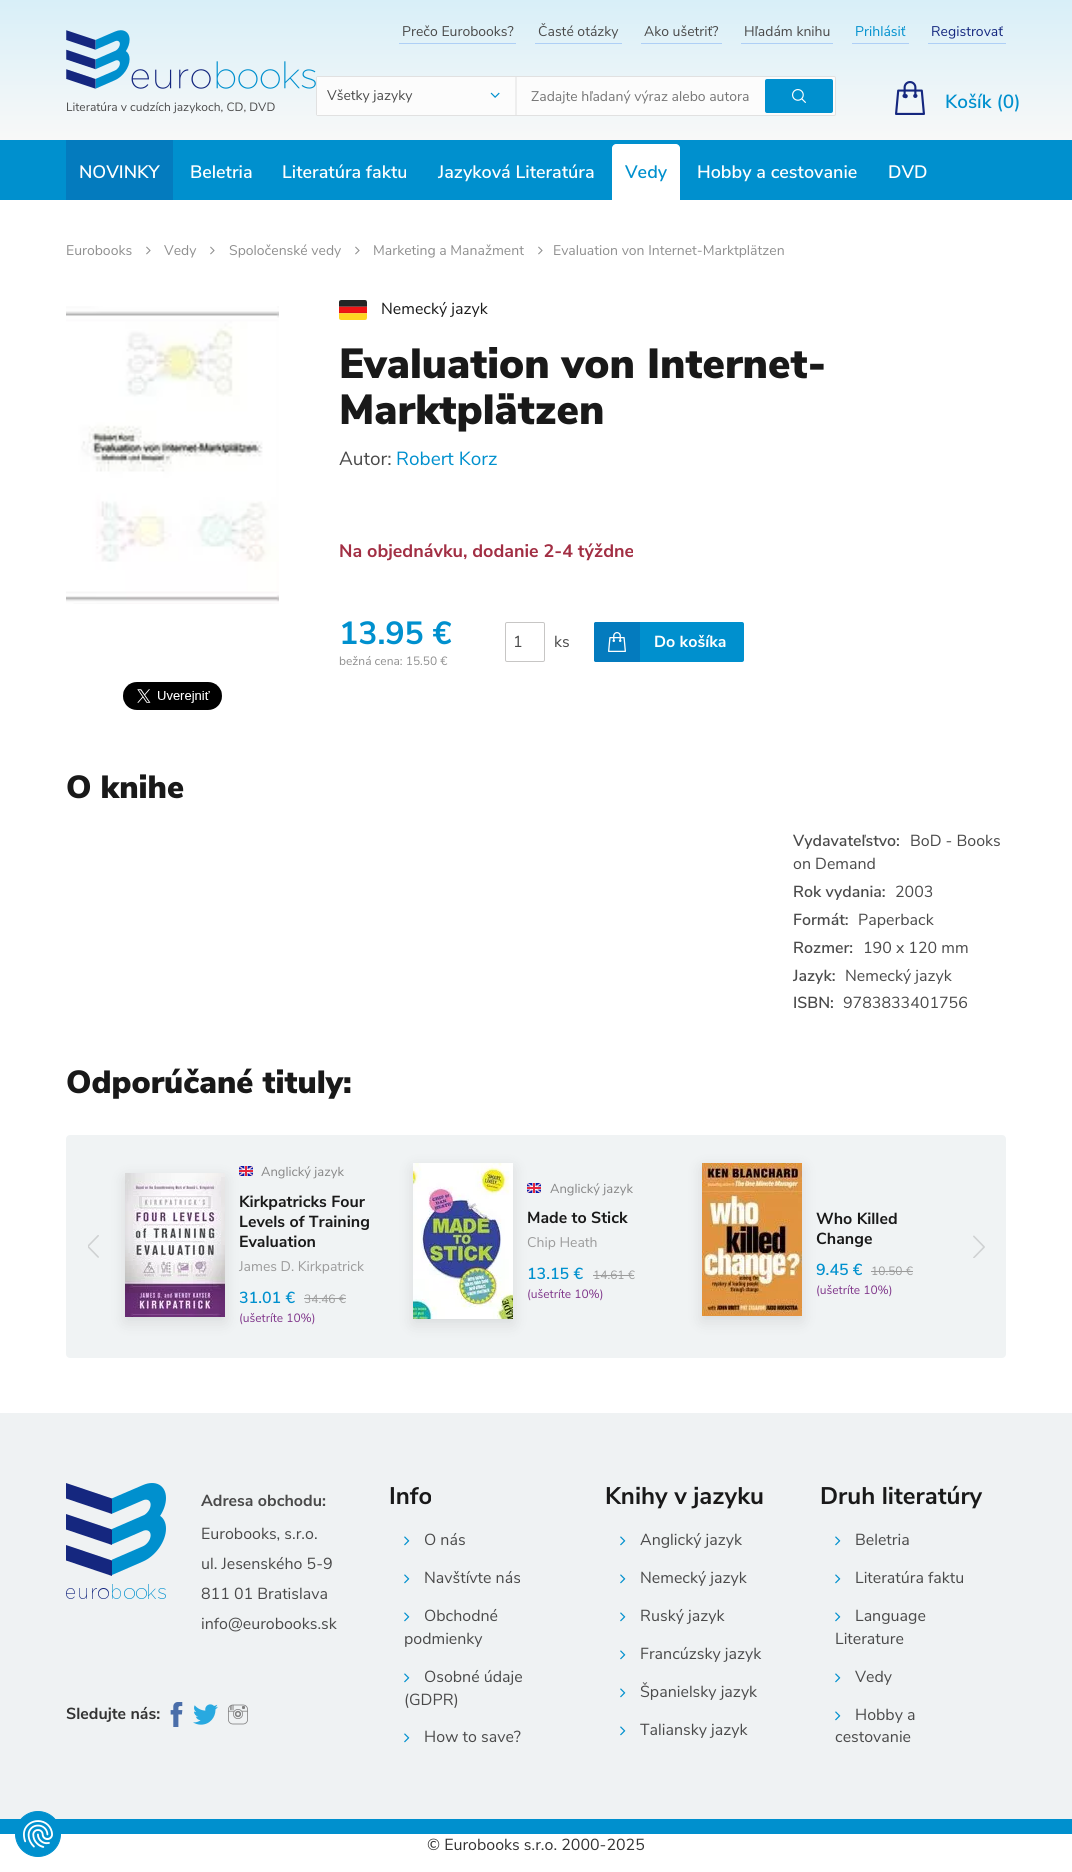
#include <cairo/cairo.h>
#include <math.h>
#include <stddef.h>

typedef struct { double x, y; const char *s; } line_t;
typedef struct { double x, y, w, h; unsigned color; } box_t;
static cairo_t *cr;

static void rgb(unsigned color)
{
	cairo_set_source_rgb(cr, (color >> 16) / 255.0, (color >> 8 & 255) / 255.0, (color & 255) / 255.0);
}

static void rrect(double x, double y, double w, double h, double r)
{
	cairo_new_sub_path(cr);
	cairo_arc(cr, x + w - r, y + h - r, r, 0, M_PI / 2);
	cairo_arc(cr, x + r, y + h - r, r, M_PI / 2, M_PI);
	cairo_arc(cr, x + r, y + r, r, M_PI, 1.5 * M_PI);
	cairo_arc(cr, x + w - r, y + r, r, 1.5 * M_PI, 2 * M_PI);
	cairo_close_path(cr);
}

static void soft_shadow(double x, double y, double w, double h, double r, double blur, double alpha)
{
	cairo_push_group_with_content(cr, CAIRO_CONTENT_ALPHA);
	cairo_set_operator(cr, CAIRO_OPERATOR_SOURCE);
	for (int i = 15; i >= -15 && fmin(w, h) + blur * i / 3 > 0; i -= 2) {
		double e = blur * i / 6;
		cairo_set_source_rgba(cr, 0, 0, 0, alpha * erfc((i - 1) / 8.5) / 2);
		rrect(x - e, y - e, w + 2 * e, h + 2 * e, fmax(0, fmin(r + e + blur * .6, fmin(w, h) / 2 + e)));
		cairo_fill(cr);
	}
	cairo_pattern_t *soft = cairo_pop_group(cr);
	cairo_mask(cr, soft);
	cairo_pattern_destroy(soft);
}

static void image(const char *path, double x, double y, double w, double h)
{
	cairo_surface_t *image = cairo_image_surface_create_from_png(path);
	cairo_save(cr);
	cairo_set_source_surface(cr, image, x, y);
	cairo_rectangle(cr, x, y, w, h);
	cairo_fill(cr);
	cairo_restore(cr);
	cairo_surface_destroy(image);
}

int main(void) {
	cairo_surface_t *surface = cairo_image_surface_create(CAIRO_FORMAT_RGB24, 1072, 1872);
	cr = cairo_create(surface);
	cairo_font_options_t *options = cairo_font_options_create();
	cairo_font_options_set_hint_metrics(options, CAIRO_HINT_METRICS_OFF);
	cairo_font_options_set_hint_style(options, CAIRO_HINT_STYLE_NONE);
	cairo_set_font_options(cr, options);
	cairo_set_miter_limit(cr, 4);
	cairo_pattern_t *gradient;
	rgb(0xffffff);
	cairo_paint(cr);
	gradient = cairo_pattern_create_linear(536, 140, 536, 0);
	cairo_pattern_add_color_stop_rgba(gradient, 0, 0.973, 0.973, 0.973, 1);
	cairo_pattern_add_color_stop_rgba(gradient, 1, 0.847, 0.937, 0.973, 1);
	cairo_set_source(cr, gradient);
	cairo_pattern_destroy(gradient);
	cairo_rectangle(cr, 0, 0, 1072, 140);
	cairo_fill(cr);
	image("img/1.png", 66, 30, 250, 59);
	{
		static const box_t items[] = {
			{399, 43, 117, 1, 0xaecff6},
			{535, 43, 87, 1, 0xaecff6},
			{641, 43, 81, 1, 0xaecff6},
			{741, 43, 92, 1, 0xaecff6},
			{852, 43, 57, 1, 0xaecff6},
			{928, 43, 78, 1, 0xaecff6},
		};
		for (size_t i = 0; i < sizeof items / sizeof *items; i++) {
			rgb(items[i].color);
			cairo_rectangle(cr, items[i].x, items[i].y, items[i].w, items[i].h);
			cairo_fill(cr);
		}
	}
	rgb(0xfcfcfc);
	rrect(316.5, 76.5, 519, 39, 1.5);
	cairo_fill_preserve(cr);
	rgb(0xe1e1e1);
	cairo_set_line_width(cr, 1);
	cairo_stroke(cr);
	rgb(0xfcfcfc);
	cairo_rectangle(cr, 317, 77, 1, 38);
	cairo_fill(cr);
	rgb(0xeeeeee);
	cairo_rectangle(cr, 515, 77, 2, 38);
	cairo_fill(cr);
	image("img/2.png", 490, 92, 10, 6);
	rgb(0x0090ce);
	rrect(765, 79, 68, 34, 2);
	cairo_fill(cr);
	image("img/3.png", 792, 89, 14, 14);
	image("img/4.png", 895, 81, 30, 34);
	cairo_rectangle(cr, 0, 140, 1072, 60);
	cairo_fill(cr);
	rgb(0x047bbe);
	cairo_rectangle(cr, 66, 140, 107, 60);
	cairo_fill(cr);
	rgb(0xffffff);
	cairo_new_path(cr);
	cairo_move_to(cr, 616, 144);
	cairo_line_to(cr, 676, 144);
	cairo_curve_to(cr, 678, 144, 680, 146, 680, 148);
	cairo_line_to(cr, 680, 200);
	cairo_line_to(cr, 612, 200);
	cairo_line_to(cr, 612, 148);
	cairo_curve_to(cr, 612, 146, 614, 144, 616, 144);
	cairo_close_path(cr);
	cairo_fill(cr);
	image("img/5.png", 146, 246, 5, 9);
	image("img/5.png", 210, 246, 5, 9);
	image("img/5.png", 355, 246, 5, 9);
	image("img/5.png", 538, 246, 5, 9);
	image("img/6.png", 66, 306, 213, 298);
	image("img/7.png", 123, 682, 99, 28);
	image("img/8.png", 339, 300, 28, 20);
	rrect(505.5, 622.5, 39, 39, 1.5);
	rgb(0xc7c6c5);
	cairo_stroke(cr);
	rgb(0x0090ce);
	rrect(594, 622, 150, 40, 2);
	cairo_fill(cr);
	rgb(0x047bbe);
	cairo_new_path(cr);
	cairo_move_to(cr, 596, 622);
	cairo_line_to(cr, 640, 622);
	cairo_line_to(cr, 640, 662);
	cairo_line_to(cr, 596, 662);
	cairo_curve_to(cr, 595, 662, 594, 661, 594, 660);
	cairo_line_to(cr, 594, 624);
	cairo_curve_to(cr, 594, 623, 595, 622, 596, 622);
	cairo_close_path(cr);
	cairo_fill(cr);
	image("img/9.png", 608, 632, 18, 20);
	rgb(0xf0f3f4);
	rrect(66, 1135, 940, 223, 4);
	cairo_fill(cr);
	rgb(0x000000);
	soft_shadow(125, 1178, 100, 144, 0, 7.5, 0.1);
	image("img/10.png", 125, 1173, 100, 144);
	image("img/11.png", 239, 1166, 14, 10);
	rgb(0x9b9b9b);
	cairo_rectangle(cr, 304, 1298, 42, 1);
	cairo_fill(cr);
	rgb(0x000000);
	soft_shadow(413, 1168, 100, 156, 0, 7.5, 0.1);
	image("img/12.png", 413, 1163, 100, 156);
	image("img/11.png", 527, 1183, 14, 10);
	rgb(0x9b9b9b);
	cairo_rectangle(cr, 593, 1275, 41, 1);
	cairo_fill(cr);
	rgb(0x000000);
	soft_shadow(702, 1168, 100, 153, 0, 7.5, 0.1);
	image("img/13.png", 702, 1163, 100, 153);
	rgb(0x9b9b9b);
	cairo_rectangle(cr, 871, 1271, 42, 1);
	cairo_fill(cr);
	image("img/14.png", 88, 1235, 11, 23);
	image("img/15.png", 973, 1235, 12, 23);
	rgb(0xeff2f3);
	cairo_rectangle(cr, 0, 1413, 1072, 406);
	cairo_fill(cr);
	rgb(0x0090ce);
	cairo_rectangle(cr, 0, 1819, 1072, 15);
	cairo_fill(cr);
	cairo_arc(cr, 38, 1834, 22.5, 0, 2 * M_PI);
	cairo_fill_preserve(cr);
	cairo_stroke(cr);
	image("img/16.png", 23, 1820, 30, 28);
	image("img/17.png", 66, 1483, 100, 116);
	image("img/18.png", 170, 1702, 13, 25);
	image("img/19.png", 193, 1704, 25, 21);
	image("img/20.png", 228, 1704, 20, 21);
	image("img/21.png", 404, 1536, 6, 10);
	image("img/21.png", 404, 1574, 6, 10);
	image("img/21.png", 404, 1612, 6, 10);
	image("img/21.png", 404, 1673, 6, 10);
	image("img/21.png", 404, 1733, 6, 10);
	image("img/21.png", 620, 1536, 6, 10);
	image("img/21.png", 620, 1574, 6, 10);
	image("img/21.png", 620, 1612, 6, 10);
	image("img/21.png", 620, 1650, 6, 10);
	image("img/21.png", 620, 1688, 6, 10);
	image("img/21.png", 620, 1726, 6, 10);
	image("img/21.png", 835, 1536, 6, 10);
	image("img/21.png", 835, 1574, 6, 10);
	image("img/21.png", 835, 1612, 6, 10);
	image("img/21.png", 835, 1673, 6, 10);
	image("img/21.png", 835, 1711, 6, 10);
	cairo_select_font_face(cr, "Nunito Sans", CAIRO_FONT_SLANT_NORMAL, CAIRO_FONT_WEIGHT_NORMAL);
	cairo_set_font_size(cr, 12);
	rgb(0x4a4a4a);
	cairo_move_to(cr, 66, 111);
	cairo_show_text(cr, "Literatúra v cudzích jazykoch, CD, DVD");
	cairo_set_font_size(cr, 14);
	{
		static const line_t items[] = {
			{402, 36, "Prečo Eurobooks?"},
			{538, 36, "Časté otázky"},
			{644, 36, "Ako ušetriť?"},
			{744, 36, "Hľadám knihu"},
		};
		for (size_t i = 0; i < sizeof items / sizeof *items; i++) {
			cairo_move_to(cr, items[i].x, items[i].y);
			cairo_show_text(cr, items[i].s);
		}
	}
	rgb(0x0090ce);
	cairo_move_to(cr, 855, 36);
	cairo_show_text(cr, "Prihlásiť");
	rgb(0x15277f);
	cairo_move_to(cr, 931, 36);
	cairo_show_text(cr, "Registrovať");
	rgb(0x4a4a4a);
	cairo_move_to(cr, 327, 100);
	cairo_show_text(cr, "Všetky jazyky");
	rgb(0x757575);
	cairo_move_to(cr, 531, 101);
	cairo_show_text(cr, "Zadajte hľadaný výraz alebo autora");
	cairo_select_font_face(cr, "Nunito Sans SemiBold", CAIRO_FONT_SLANT_NORMAL, CAIRO_FONT_WEIGHT_NORMAL);
	cairo_set_font_size(cr, 19);
	rgb(0x0090ce);
	cairo_move_to(cr, 945, 108);
	cairo_show_text(cr, "Košík (0)");
	cairo_set_font_size(cr, 18);
	rgb(0xffffff);
	{
		static const line_t items[] = {
			{79, 178, "NOVINKY"},
			{190, 178, "Beletria"},
			{282, 178, "Literatúra faktu"},
			{438, 178, "Jazyková Literatúra"},
		};
		for (size_t i = 0; i < sizeof items / sizeof *items; i++) {
			cairo_move_to(cr, items[i].x, items[i].y);
			cairo_show_text(cr, items[i].s);
		}
	}
	rgb(0x0090ce);
	cairo_move_to(cr, 625, 178);
	cairo_show_text(cr, "Vedy");
	rgb(0xffffff);
	cairo_move_to(cr, 697, 178);
	cairo_show_text(cr, "Hobby a cestovanie");
	cairo_move_to(cr, 888, 178);
	cairo_show_text(cr, "DVD");
	cairo_select_font_face(cr, "Nunito Sans", CAIRO_FONT_SLANT_NORMAL, CAIRO_FONT_WEIGHT_NORMAL);
	cairo_set_font_size(cr, 14);
	rgb(0x8f8f8f);
	{
		static const line_t items[] = {
			{66, 255, "Eurobooks"},
			{164, 255, "Vedy"},
			{229, 255, "Spoločenské vedy"},
			{373, 255, "Marketing a Manažment"},
			{553, 255, "Evaluation von Internet-Marktplätzen"},
		};
		for (size_t i = 0; i < sizeof items / sizeof *items; i++) {
			cairo_move_to(cr, items[i].x, items[i].y);
			cairo_show_text(cr, items[i].s);
		}
	}
	cairo_set_font_size(cr, 16);
	rgb(0x191919);
	cairo_move_to(cr, 381, 314);
	cairo_show_text(cr, "Nemecký jazyk");
	cairo_select_font_face(cr, "Nunito Sans Black", CAIRO_FONT_SLANT_NORMAL, CAIRO_FONT_WEIGHT_NORMAL);
	cairo_set_font_size(cr, 42);
	cairo_move_to(cr, 339, 378);
	cairo_show_text(cr, "Evaluation von Internet-");
	cairo_move_to(cr, 339, 424);
	cairo_show_text(cr, "Marktplätzen");
	cairo_select_font_face(cr, "Nunito Sans", CAIRO_FONT_SLANT_NORMAL, CAIRO_FONT_WEIGHT_NORMAL);
	cairo_set_font_size(cr, 19);
	rgb(0x4a4a4a);
	cairo_move_to(cr, 339, 465);
	cairo_show_text(cr, "Autor:");
	rgb(0x0090ce);
	cairo_move_to(cr, 396, 465);
	cairo_show_text(cr, "Robert Korz");
	cairo_select_font_face(cr, "Nunito Sans", CAIRO_FONT_SLANT_NORMAL, CAIRO_FONT_WEIGHT_BOLD);
	cairo_set_font_size(cr, 18);
	rgb(0xa22f44);
	cairo_move_to(cr, 339, 557);
	cairo_show_text(cr, "Na objednávku, dodanie 2-4 týždne");
	cairo_set_font_size(cr, 32);
	rgb(0x0090ce);
	cairo_move_to(cr, 339, 644);
	cairo_show_text(cr, "13.95 €");
	cairo_select_font_face(cr, "Nunito Sans", CAIRO_FONT_SLANT_NORMAL, CAIRO_FONT_WEIGHT_NORMAL);
	cairo_set_font_size(cr, 12);
	rgb(0x8f8f8f);
	cairo_move_to(cr, 339, 665);
	cairo_show_text(cr, "bežná cena: 15.50 €");
	cairo_set_font_size(cr, 16);
	rgb(0x4a4a4a);
	cairo_move_to(cr, 513, 647);
	cairo_show_text(cr, "1");
	cairo_move_to(cr, 554, 647);
	cairo_show_text(cr, "ks");
	cairo_select_font_face(cr, "Nunito Sans", CAIRO_FONT_SLANT_NORMAL, CAIRO_FONT_WEIGHT_BOLD);
	rgb(0xffffff);
	cairo_move_to(cr, 654, 647);
	cairo_show_text(cr, "Do košíka");
	cairo_select_font_face(cr, "Nunito Sans Black", CAIRO_FONT_SLANT_NORMAL, CAIRO_FONT_WEIGHT_NORMAL);
	cairo_set_font_size(cr, 32);
	rgb(0x191919);
	cairo_move_to(cr, 66, 798);
	cairo_show_text(cr, "O knihe");
	cairo_select_font_face(cr, "Nunito Sans SemiBold", CAIRO_FONT_SLANT_NORMAL, CAIRO_FONT_WEIGHT_NORMAL);
	cairo_set_font_size(cr, 16);
	rgb(0x4a4a4a);
	cairo_move_to(cr, 793, 846);
	cairo_show_text(cr, "Vydavateľstvo:");
	cairo_select_font_face(cr, "Nunito Sans", CAIRO_FONT_SLANT_NORMAL, CAIRO_FONT_WEIGHT_NORMAL);
	cairo_move_to(cr, 910, 846);
	cairo_show_text(cr, "BoD - Books");
	cairo_move_to(cr, 793, 869);
	cairo_show_text(cr, "on Demand");
	cairo_select_font_face(cr, "Nunito Sans SemiBold", CAIRO_FONT_SLANT_NORMAL, CAIRO_FONT_WEIGHT_NORMAL);
	cairo_move_to(cr, 793, 897);
	cairo_show_text(cr, "Rok vydania:");
	cairo_select_font_face(cr, "Nunito Sans", CAIRO_FONT_SLANT_NORMAL, CAIRO_FONT_WEIGHT_NORMAL);
	cairo_move_to(cr, 895, 897);
	cairo_show_text(cr, "2003");
	cairo_select_font_face(cr, "Nunito Sans SemiBold", CAIRO_FONT_SLANT_NORMAL, CAIRO_FONT_WEIGHT_NORMAL);
	cairo_move_to(cr, 793, 925);
	cairo_show_text(cr, "Formát:");
	cairo_select_font_face(cr, "Nunito Sans", CAIRO_FONT_SLANT_NORMAL, CAIRO_FONT_WEIGHT_NORMAL);
	cairo_move_to(cr, 858, 925);
	cairo_show_text(cr, "Paperback");
	cairo_select_font_face(cr, "Nunito Sans SemiBold", CAIRO_FONT_SLANT_NORMAL, CAIRO_FONT_WEIGHT_NORMAL);
	cairo_move_to(cr, 793, 953);
	cairo_show_text(cr, "Rozmer:");
	cairo_select_font_face(cr, "Nunito Sans", CAIRO_FONT_SLANT_NORMAL, CAIRO_FONT_WEIGHT_NORMAL);
	cairo_move_to(cr, 863, 953);
	cairo_show_text(cr, "190 x 120 mm");
	cairo_select_font_face(cr, "Nunito Sans SemiBold", CAIRO_FONT_SLANT_NORMAL, CAIRO_FONT_WEIGHT_NORMAL);
	cairo_move_to(cr, 793, 981);
	cairo_show_text(cr, "Jazyk:");
	cairo_select_font_face(cr, "Nunito Sans", CAIRO_FONT_SLANT_NORMAL, CAIRO_FONT_WEIGHT_NORMAL);
	cairo_move_to(cr, 845, 981);
	cairo_show_text(cr, "Nemecký jazyk");
	cairo_select_font_face(cr, "Nunito Sans SemiBold", CAIRO_FONT_SLANT_NORMAL, CAIRO_FONT_WEIGHT_NORMAL);
	cairo_move_to(cr, 793, 1008);
	cairo_show_text(cr, "ISBN:");
	cairo_select_font_face(cr, "Nunito Sans", CAIRO_FONT_SLANT_NORMAL, CAIRO_FONT_WEIGHT_NORMAL);
	cairo_move_to(cr, 843, 1008);
	cairo_show_text(cr, "9783833401756");
	cairo_select_font_face(cr, "Nunito Sans Black", CAIRO_FONT_SLANT_NORMAL, CAIRO_FONT_WEIGHT_NORMAL);
	cairo_set_font_size(cr, 32);
	rgb(0x191919);
	cairo_move_to(cr, 66, 1093);
	cairo_show_text(cr, "Odporúčané tituly:");
	cairo_select_font_face(cr, "Nunito Sans", CAIRO_FONT_SLANT_NORMAL, CAIRO_FONT_WEIGHT_NORMAL);
	cairo_set_font_size(cr, 13);
	rgb(0x868686);
	cairo_move_to(cr, 261, 1176);
	cairo_show_text(cr, "Anglický jazyk");
	cairo_select_font_face(cr, "Nunito Sans", CAIRO_FONT_SLANT_NORMAL, CAIRO_FONT_WEIGHT_BOLD);
	cairo_set_font_size(cr, 16);
	rgb(0x191919);
	{
		static const line_t items[] = {
			{239, 1207, "Kirkpatricks Four"},
			{239, 1227, "Levels of Training"},
			{239, 1247, "Evaluation"},
		};
		for (size_t i = 0; i < sizeof items / sizeof *items; i++) {
			cairo_move_to(cr, items[i].x, items[i].y);
			cairo_show_text(cr, items[i].s);
		}
	}
	cairo_select_font_face(cr, "Nunito Sans", CAIRO_FONT_SLANT_NORMAL, CAIRO_FONT_WEIGHT_NORMAL);
	cairo_set_font_size(cr, 14);
	rgb(0x9b9b9b);
	cairo_move_to(cr, 239, 1271);
	cairo_show_text(cr, "James D. Kirkpatrick");
	cairo_select_font_face(cr, "Nunito Sans SemiBold", CAIRO_FONT_SLANT_NORMAL, CAIRO_FONT_WEIGHT_NORMAL);
	cairo_set_font_size(cr, 16);
	rgb(0x0090ce);
	cairo_move_to(cr, 239, 1303);
	cairo_show_text(cr, "31.01 €");
	cairo_select_font_face(cr, "Nunito Sans", CAIRO_FONT_SLANT_NORMAL, CAIRO_FONT_WEIGHT_NORMAL);
	cairo_set_font_size(cr, 12);
	rgb(0x9b9b9b);
	cairo_move_to(cr, 304, 1303);
	cairo_show_text(cr, "34.46 €");
	rgb(0x7f358a);
	cairo_move_to(cr, 239, 1322);
	cairo_show_text(cr, "(ušetríte 10%)");
	cairo_set_font_size(cr, 13);
	rgb(0x868686);
	cairo_move_to(cr, 550, 1193);
	cairo_show_text(cr, "Anglický jazyk");
	cairo_select_font_face(cr, "Nunito Sans", CAIRO_FONT_SLANT_NORMAL, CAIRO_FONT_WEIGHT_BOLD);
	cairo_set_font_size(cr, 16);
	rgb(0x191919);
	cairo_move_to(cr, 527, 1223);
	cairo_show_text(cr, "Made to Stick");
	cairo_select_font_face(cr, "Nunito Sans", CAIRO_FONT_SLANT_NORMAL, CAIRO_FONT_WEIGHT_NORMAL);
	cairo_set_font_size(cr, 14);
	rgb(0x9b9b9b);
	cairo_move_to(cr, 527, 1247);
	cairo_show_text(cr, "Chip Heath");
	cairo_select_font_face(cr, "Nunito Sans SemiBold", CAIRO_FONT_SLANT_NORMAL, CAIRO_FONT_WEIGHT_NORMAL);
	cairo_set_font_size(cr, 16);
	rgb(0x0090ce);
	cairo_move_to(cr, 527, 1279);
	cairo_show_text(cr, "13.15 €");
	cairo_select_font_face(cr, "Nunito Sans", CAIRO_FONT_SLANT_NORMAL, CAIRO_FONT_WEIGHT_NORMAL);
	cairo_set_font_size(cr, 12);
	rgb(0x9b9b9b);
	cairo_move_to(cr, 593, 1279);
	cairo_show_text(cr, "14.61 €");
	rgb(0x7f358a);
	cairo_move_to(cr, 527, 1298);
	cairo_show_text(cr, "(ušetríte 10%)");
	cairo_select_font_face(cr, "Nunito Sans", CAIRO_FONT_SLANT_NORMAL, CAIRO_FONT_WEIGHT_BOLD);
	cairo_set_font_size(cr, 16);
	rgb(0x191919);
	cairo_move_to(cr, 816, 1224);
	cairo_show_text(cr, "Who Killed");
	cairo_move_to(cr, 816, 1244);
	cairo_show_text(cr, "Change");
	cairo_select_font_face(cr, "Nunito Sans SemiBold", CAIRO_FONT_SLANT_NORMAL, CAIRO_FONT_WEIGHT_NORMAL);
	rgb(0x0090ce);
	cairo_move_to(cr, 816, 1275);
	cairo_show_text(cr, "9.45 €");
	cairo_select_font_face(cr, "Nunito Sans", CAIRO_FONT_SLANT_NORMAL, CAIRO_FONT_WEIGHT_NORMAL);
	cairo_set_font_size(cr, 12);
	rgb(0x9b9b9b);
	cairo_move_to(cr, 871, 1275);
	cairo_show_text(cr, "10.50 €");
	rgb(0x7f358a);
	cairo_move_to(cr, 816, 1294);
	cairo_show_text(cr, "(ušetríte 10%)");
	cairo_select_font_face(cr, "Nunito Sans", CAIRO_FONT_SLANT_NORMAL, CAIRO_FONT_WEIGHT_BOLD);
	cairo_set_font_size(cr, 16);
	rgb(0x4a4a4a);
	cairo_move_to(cr, 201, 1506);
	cairo_show_text(cr, "Adresa obchodu:");
	cairo_select_font_face(cr, "Nunito Sans", CAIRO_FONT_SLANT_NORMAL, CAIRO_FONT_WEIGHT_NORMAL);
	{
		static const line_t items[] = {
			{201, 1539, "Eurobooks, s.r.o."},
			{201, 1569, "ul. Jesenského 5-9"},
			{201, 1599, "811 01 Bratislava"},
			{201, 1629, "info@eurobooks.sk"},
		};
		for (size_t i = 0; i < sizeof items / sizeof *items; i++) {
			cairo_move_to(cr, items[i].x, items[i].y);
			cairo_show_text(cr, items[i].s);
		}
	}
	cairo_select_font_face(cr, "Nunito Sans", CAIRO_FONT_SLANT_NORMAL, CAIRO_FONT_WEIGHT_BOLD);
	rgb(0x333333);
	cairo_move_to(cr, 66, 1719);
	cairo_show_text(cr, "Sledujte nás:");
	cairo_set_font_size(cr, 24);
	rgb(0x191919);
	cairo_move_to(cr, 389, 1504);
	cairo_show_text(cr, "Info");
	cairo_select_font_face(cr, "Nunito Sans", CAIRO_FONT_SLANT_NORMAL, CAIRO_FONT_WEIGHT_NORMAL);
	cairo_set_font_size(cr, 16);
	rgb(0x4a4a4a);
	{
		static const line_t items[] = {
			{424, 1545, "O nás"},
			{424, 1583, "Navštívte nás"},
			{424, 1621, "Obchodné"},
			{404, 1644, "podmienky"},
			{424, 1682, "Osobné údaje"},
			{404, 1705, "(GDPR)"},
			{424, 1742, "How to save?"},
		};
		for (size_t i = 0; i < sizeof items / sizeof *items; i++) {
			cairo_move_to(cr, items[i].x, items[i].y);
			cairo_show_text(cr, items[i].s);
		}
	}
	cairo_select_font_face(cr, "Nunito Sans", CAIRO_FONT_SLANT_NORMAL, CAIRO_FONT_WEIGHT_BOLD);
	cairo_set_font_size(cr, 24);
	rgb(0x191919);
	cairo_move_to(cr, 605, 1504);
	cairo_show_text(cr, "Knihy v jazyku");
	cairo_select_font_face(cr, "Nunito Sans", CAIRO_FONT_SLANT_NORMAL, CAIRO_FONT_WEIGHT_NORMAL);
	cairo_set_font_size(cr, 16);
	rgb(0x4a4a4a);
	{
		static const line_t items[] = {
			{640, 1545, "Anglický jazyk"},
			{640, 1583, "Nemecký jazyk"},
			{640, 1621, "Ruský jazyk"},
			{640, 1659, "Francúzsky jazyk"},
			{640, 1697, "Španielsky jazyk"},
			{640, 1735, "Taliansky jazyk"},
		};
		for (size_t i = 0; i < sizeof items / sizeof *items; i++) {
			cairo_move_to(cr, items[i].x, items[i].y);
			cairo_show_text(cr, items[i].s);
		}
	}
	cairo_select_font_face(cr, "Nunito Sans", CAIRO_FONT_SLANT_NORMAL, CAIRO_FONT_WEIGHT_BOLD);
	cairo_set_font_size(cr, 24);
	rgb(0x191919);
	cairo_move_to(cr, 820, 1504);
	cairo_show_text(cr, "Druh literatúry");
	cairo_select_font_face(cr, "Nunito Sans", CAIRO_FONT_SLANT_NORMAL, CAIRO_FONT_WEIGHT_NORMAL);
	cairo_set_font_size(cr, 16);
	rgb(0x4a4a4a);
	{
		static const line_t items[] = {
			{855, 1545, "Beletria"},
			{855, 1583, "Literatúra faktu"},
			{855, 1621, "Language"},
			{835, 1644, "Literature"},
			{855, 1682, "Vedy"},
			{855, 1720, "Hobby a"},
			{835, 1742, "cestovanie"},
		};
		for (size_t i = 0; i < sizeof items / sizeof *items; i++) {
			cairo_move_to(cr, items[i].x, items[i].y);
			cairo_show_text(cr, items[i].s);
		}
	}
	rgb(0x333333);
	cairo_move_to(cr, 427, 1850);
	cairo_show_text(cr, "© Eurobooks s.r.o. 2000-2025");
	cairo_surface_write_to_png(surface, "page.png");
	cairo_font_options_destroy(options);
	cairo_destroy(cr);
	cairo_surface_destroy(surface);
	return 0;
}
